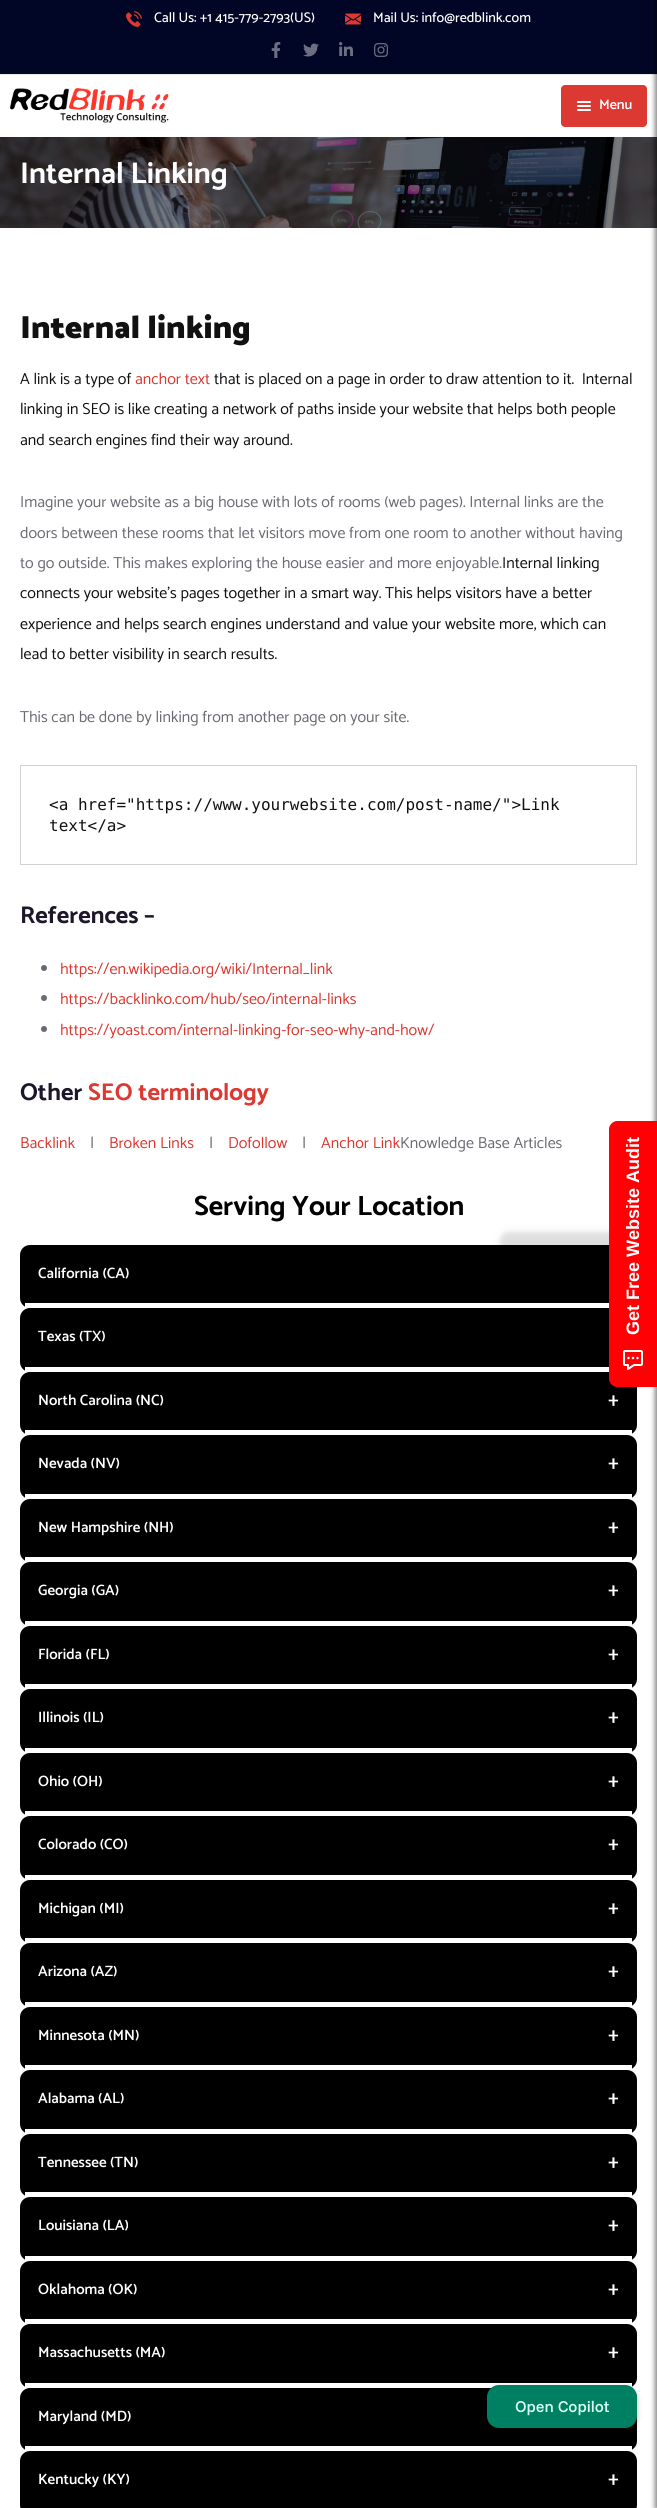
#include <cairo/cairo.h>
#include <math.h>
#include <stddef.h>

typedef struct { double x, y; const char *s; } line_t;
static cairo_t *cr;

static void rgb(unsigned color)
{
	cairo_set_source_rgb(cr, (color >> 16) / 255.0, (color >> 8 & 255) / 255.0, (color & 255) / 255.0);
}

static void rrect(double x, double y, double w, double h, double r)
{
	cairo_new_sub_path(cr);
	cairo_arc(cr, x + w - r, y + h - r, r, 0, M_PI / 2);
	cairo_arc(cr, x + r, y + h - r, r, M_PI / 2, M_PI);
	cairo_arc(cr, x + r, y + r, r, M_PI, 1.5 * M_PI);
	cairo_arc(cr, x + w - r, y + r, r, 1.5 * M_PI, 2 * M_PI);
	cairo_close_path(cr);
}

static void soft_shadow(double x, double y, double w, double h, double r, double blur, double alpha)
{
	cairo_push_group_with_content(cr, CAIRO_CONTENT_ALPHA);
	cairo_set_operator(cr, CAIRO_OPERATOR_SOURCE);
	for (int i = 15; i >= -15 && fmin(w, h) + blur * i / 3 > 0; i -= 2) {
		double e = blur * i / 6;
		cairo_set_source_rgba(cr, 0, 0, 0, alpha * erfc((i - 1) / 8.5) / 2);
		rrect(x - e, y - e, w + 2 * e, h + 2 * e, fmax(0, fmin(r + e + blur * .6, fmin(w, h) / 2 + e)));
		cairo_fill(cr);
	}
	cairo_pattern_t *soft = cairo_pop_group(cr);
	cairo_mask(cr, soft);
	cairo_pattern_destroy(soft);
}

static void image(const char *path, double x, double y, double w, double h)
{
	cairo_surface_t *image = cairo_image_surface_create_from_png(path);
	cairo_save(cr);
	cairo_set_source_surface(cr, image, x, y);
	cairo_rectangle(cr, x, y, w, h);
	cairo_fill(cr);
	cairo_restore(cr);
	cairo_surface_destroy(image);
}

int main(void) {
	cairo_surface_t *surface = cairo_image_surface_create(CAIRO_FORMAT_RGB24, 657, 2508);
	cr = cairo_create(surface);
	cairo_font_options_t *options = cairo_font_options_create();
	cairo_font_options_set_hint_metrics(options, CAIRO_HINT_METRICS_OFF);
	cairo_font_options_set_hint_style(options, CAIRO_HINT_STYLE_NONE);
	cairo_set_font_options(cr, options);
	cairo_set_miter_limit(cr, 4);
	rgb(0xffffff);
	cairo_paint(cr);
	rgb(0x020626);
	cairo_rectangle(cr, 0, 0, 657, 74);
	cairo_fill(cr);
	rgb(0xeaeaea);
	cairo_rectangle(cr, 0, 74, 657, 1);
	cairo_fill(cr);
	image("img/1.png", 126, 11, 16, 16);
	image("img/2.png", 345, 13, 16, 12);
	image("img/3.png", 271, 42, 10, 16);
	image("img/4.png", 303, 43, 16, 14);
	image("img/5.png", 339, 42, 14, 14);
	image("img/6.png", 374, 43, 14, 14);
	image("img/7.png", 10, 88, 159, 35);
	rgb(0xdb3931);
	rrect(561, 85, 86, 42, 4);
	cairo_fill(cr);
	rgb(0xffffff);
	rrect(577, 101, 14, 2, 1);
	cairo_fill(cr);
	rrect(577, 105, 14, 2, 1);
	cairo_fill(cr);
	rrect(577, 109, 14, 2, 1);
	cairo_fill(cr);
	image("img/8.png", 0, 137, 657, 91);
	cairo_rectangle(cr, 20.5, 765.5, 616, 99);
	rgb(0xd1d1d1);
	cairo_set_line_width(cr, 1);
	cairo_stroke(cr);
	rgb(0x6c6a72);
	cairo_arc(cr, 44, 968, 3, 0, 2 * M_PI);
	cairo_fill(cr);
	cairo_arc(cr, 44, 998, 3, 0, 2 * M_PI);
	cairo_fill(cr);
	cairo_arc(cr, 44, 1029, 3, 0, 2 * M_PI);
	cairo_fill(cr);
	rgb(0x000000);
	rrect(20, 1245, 617, 63, 10);
	cairo_fill(cr);
	rgb(0xffffff);
	cairo_rectangle(cr, 25, 1303, 584, 5);
	cairo_fill(cr);
	rgb(0x000000);
	rrect(20, 1308, 617, 64, 10);
	cairo_fill(cr);
	rgb(0xffffff);
	cairo_rectangle(cr, 25, 1367, 584, 5);
	cairo_fill(cr);
	rgb(0x000000);
	rrect(20, 1372, 617, 63, 10);
	cairo_fill(cr);
	rgb(0xffffff);
	cairo_rectangle(cr, 25, 1430, 607, 5);
	cairo_fill(cr);
	rgb(0x000000);
	rrect(20, 1435, 617, 64, 10);
	cairo_fill(cr);
	rgb(0xffffff);
	cairo_rectangle(cr, 25, 1494, 607, 5);
	cairo_fill(cr);
	rgb(0x000000);
	rrect(20, 1499, 617, 63, 10);
	cairo_fill(cr);
	rgb(0xffffff);
	cairo_rectangle(cr, 25, 1557, 607, 5);
	cairo_fill(cr);
	rgb(0x000000);
	rrect(20, 1562, 617, 64, 10);
	cairo_fill(cr);
	rgb(0xffffff);
	cairo_rectangle(cr, 25, 1621, 607, 5);
	cairo_fill(cr);
	rgb(0x000000);
	rrect(20, 1626, 617, 63, 10);
	cairo_fill(cr);
	rgb(0xffffff);
	cairo_rectangle(cr, 25, 1684, 607, 5);
	cairo_fill(cr);
	rgb(0x000000);
	rrect(20, 1689, 617, 64, 10);
	cairo_fill(cr);
	rgb(0xffffff);
	cairo_rectangle(cr, 25, 1748, 607, 5);
	cairo_fill(cr);
	rgb(0x000000);
	rrect(20, 1753, 617, 63, 10);
	cairo_fill(cr);
	rgb(0xffffff);
	cairo_rectangle(cr, 25, 1811, 607, 5);
	cairo_fill(cr);
	rgb(0x000000);
	rrect(20, 1816, 617, 64, 10);
	cairo_fill(cr);
	rgb(0xffffff);
	cairo_rectangle(cr, 25, 1875, 607, 5);
	cairo_fill(cr);
	rgb(0x000000);
	rrect(20, 1880, 617, 63, 10);
	cairo_fill(cr);
	rgb(0xffffff);
	cairo_rectangle(cr, 25, 1938, 607, 5);
	cairo_fill(cr);
	rgb(0x000000);
	rrect(20, 1943, 617, 64, 10);
	cairo_fill(cr);
	rgb(0xffffff);
	cairo_rectangle(cr, 25, 2002, 607, 5);
	cairo_fill(cr);
	rgb(0x000000);
	rrect(20, 2007, 617, 63, 10);
	cairo_fill(cr);
	rgb(0xffffff);
	cairo_rectangle(cr, 25, 2065, 607, 5);
	cairo_fill(cr);
	rgb(0x000000);
	rrect(20, 2070, 617, 64, 10);
	cairo_fill(cr);
	rgb(0xffffff);
	cairo_rectangle(cr, 25, 2129, 607, 5);
	cairo_fill(cr);
	rgb(0x000000);
	rrect(20, 2134, 617, 63, 10);
	cairo_fill(cr);
	rgb(0xffffff);
	cairo_rectangle(cr, 25, 2192, 607, 5);
	cairo_fill(cr);
	rgb(0x000000);
	rrect(20, 2197, 617, 64, 10);
	cairo_fill(cr);
	rgb(0xffffff);
	cairo_rectangle(cr, 25, 2256, 607, 5);
	cairo_fill(cr);
	rgb(0x000000);
	rrect(20, 2261, 617, 63, 10);
	cairo_fill(cr);
	rgb(0xffffff);
	cairo_rectangle(cr, 25, 2319, 607, 5);
	cairo_fill(cr);
	rgb(0x000000);
	rrect(20, 2324, 617, 64, 10);
	cairo_fill(cr);
	rgb(0xffffff);
	cairo_rectangle(cr, 25, 2383, 607, 5);
	cairo_fill(cr);
	rgb(0x000000);
	rrect(20, 2388, 617, 63, 10);
	cairo_fill(cr);
	rgb(0xffffff);
	cairo_rectangle(cr, 25, 2446, 607, 5);
	cairo_fill(cr);
	rgb(0x000000);
	rrect(20, 2451, 617, 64, 10);
	cairo_fill(cr);
	rgb(0x000000);
	soft_shadow(500, 1232, 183, 48, 8, 6, 0.06);
	soft_shadow(500, 1232, 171, 48, 8, 2, 0.08);
	soft_shadow(655, 0, 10, 2508, 0, 2.5, 0.5);
	rgb(0xff0105);
	cairo_new_path(cr);
	cairo_move_to(cr, 609, 1379);
	cairo_line_to(cr, 609, 1129);
	cairo_curve_to(cr, 609, 1125, 613, 1121, 617, 1121);
	cairo_line_to(cr, 657, 1121);
	cairo_line_to(cr, 657, 1387);
	cairo_line_to(cr, 617, 1387);
	cairo_curve_to(cr, 613, 1387, 609, 1383, 609, 1379);
	cairo_close_path(cr);
	cairo_fill(cr);
	image("img/9.png", 623, 1350, 20, 20);
	rgb(0x000000);
	soft_shadow(487, 2387, 150, 43, 12, 2.5, 0.3);
	rgb(0x008062);
	rrect(487, 2385, 150, 43, 12);
	cairo_fill(cr);
	cairo_select_font_face(cr, "Catamaran Medium", CAIRO_FONT_SLANT_NORMAL, CAIRO_FONT_WEIGHT_NORMAL);
	cairo_set_font_size(cr, 14);
	rgb(0xffffff);
	cairo_move_to(cr, 154, 22);
	cairo_show_text(cr, "Call Us: +1 415-779-2793(US)");
	cairo_move_to(cr, 373, 22);
	cairo_show_text(cr, "Mail Us: info@redblink.com");
	cairo_select_font_face(cr, "Catamaran SemiBold", CAIRO_FONT_SLANT_NORMAL, CAIRO_FONT_WEIGHT_NORMAL);
	cairo_move_to(cr, 599, 109);
	cairo_show_text(cr, "Menu");
	cairo_select_font_face(cr, "Catamaran", CAIRO_FONT_SLANT_NORMAL, CAIRO_FONT_WEIGHT_BOLD);
	cairo_set_font_size(cr, 30);
	cairo_move_to(cr, 20, 183);
	cairo_show_text(cr, "Internal Linking");
	cairo_select_font_face(cr, "Catamaran Black", CAIRO_FONT_SLANT_NORMAL, CAIRO_FONT_WEIGHT_NORMAL);
	cairo_set_font_size(cr, 32);
	rgb(0x111111);
	cairo_move_to(cr, 20, 338);
	cairo_show_text(cr, "Internal linking");
	cairo_select_font_face(cr, "Catamaran", CAIRO_FONT_SLANT_NORMAL, CAIRO_FONT_WEIGHT_NORMAL);
	cairo_set_font_size(cr, 16);
	cairo_move_to(cr, 20, 384);
	cairo_show_text(cr, "A link is a type of");
	rgb(0xdb3931);
	cairo_move_to(cr, 135, 384);
	cairo_show_text(cr, "anchor text");
	rgb(0x111111);
	{
		static const line_t items[] = {
			{214, 384, "that is placed on a page in order to draw attention to it.  Internal"},
			{20, 414, "linking in SEO is like creating a network of paths inside your website that helps both people"},
			{20, 445, "and search engines find their way around."},
		};
		for (size_t i = 0; i < sizeof items / sizeof *items; i++) {
			cairo_move_to(cr, items[i].x, items[i].y);
			cairo_show_text(cr, items[i].s);
		}
	}
	rgb(0x6c6a72);
	{
		static const line_t items[] = {
			{20, 507, "Imagine your website as a big house with lots of rooms (web pages). Internal links are the"},
			{20, 538, "doors between these rooms that let visitors move from one room to another without having"},
			{20, 568, "to go outside. This makes exploring the house easier and more enjoyable."},
		};
		for (size_t i = 0; i < sizeof items / sizeof *items; i++) {
			cairo_move_to(cr, items[i].x, items[i].y);
			cairo_show_text(cr, items[i].s);
		}
	}
	rgb(0x111111);
	{
		static const line_t items[] = {
			{502, 568, "Internal linking"},
			{20, 598, "connects your website’s pages together in a smart way. This helps visitors have a better"},
			{20, 629, "experience and helps search engines understand and value your website more, which can"},
			{20, 659, "lead to better visibility in search results."},
		};
		for (size_t i = 0; i < sizeof items / sizeof *items; i++) {
			cairo_move_to(cr, items[i].x, items[i].y);
			cairo_show_text(cr, items[i].s);
		}
	}
	rgb(0x6c6a72);
	cairo_move_to(cr, 20, 722);
	cairo_show_text(cr, "This can be done by linking from another page on your site.");
	cairo_select_font_face(cr, "DejaVu Sans Mono", CAIRO_FONT_SLANT_NORMAL, CAIRO_FONT_WEIGHT_NORMAL);
	rgb(0x111111);
	cairo_move_to(cr, 49, 810);
	cairo_show_text(cr, "<a href=\"https://www.yourwebsite.com/post-name/\">Link");
	cairo_move_to(cr, 49, 831);
	cairo_show_text(cr, "text</a>");
	cairo_select_font_face(cr, "Catamaran", CAIRO_FONT_SLANT_NORMAL, CAIRO_FONT_WEIGHT_BOLD);
	cairo_set_font_size(cr, 24.25);
	rgb(0x1d1729);
	cairo_move_to(cr, 20, 923);
	cairo_show_text(cr, "References –");
	cairo_select_font_face(cr, "Catamaran", CAIRO_FONT_SLANT_NORMAL, CAIRO_FONT_WEIGHT_NORMAL);
	cairo_set_font_size(cr, 16);
	rgb(0xdb3931);
	{
		static const line_t items[] = {
			{60, 974, "https://en.wikipedia.org/wiki/Internal_link"},
			{60, 1004, "https://backlinko.com/hub/seo/internal-links"},
			{60, 1035, "https://yoast.com/internal-linking-for-seo-why-and-how/"},
		};
		for (size_t i = 0; i < sizeof items / sizeof *items; i++) {
			cairo_move_to(cr, items[i].x, items[i].y);
			cairo_show_text(cr, items[i].s);
		}
	}
	cairo_select_font_face(cr, "Catamaran", CAIRO_FONT_SLANT_NORMAL, CAIRO_FONT_WEIGHT_BOLD);
	cairo_set_font_size(cr, 24.25);
	rgb(0x1d1729);
	cairo_move_to(cr, 20, 1100);
	cairo_show_text(cr, "Other");
	rgb(0xdb3931);
	cairo_move_to(cr, 88, 1100);
	cairo_show_text(cr, "SEO terminology");
	cairo_select_font_face(cr, "Catamaran", CAIRO_FONT_SLANT_NORMAL, CAIRO_FONT_WEIGHT_NORMAL);
	cairo_set_font_size(cr, 16);
	cairo_move_to(cr, 20, 1148);
	cairo_show_text(cr, "Backlink");
	rgb(0x6c6a72);
	cairo_move_to(cr, 90, 1148);
	cairo_show_text(cr, "|");
	rgb(0xdb3931);
	cairo_move_to(cr, 109, 1148);
	cairo_show_text(cr, "Broken Links");
	rgb(0x6c6a72);
	cairo_move_to(cr, 209, 1148);
	cairo_show_text(cr, "|");
	rgb(0xdb3931);
	cairo_move_to(cr, 228, 1148);
	cairo_show_text(cr, "Dofollow");
	rgb(0x6c6a72);
	cairo_move_to(cr, 302, 1148);
	cairo_show_text(cr, "|");
	rgb(0xdb3931);
	cairo_move_to(cr, 321, 1148);
	cairo_show_text(cr, "Anchor Link");
	rgb(0x6c6a72);
	cairo_move_to(cr, 400, 1148);
	cairo_show_text(cr, "Knowledge Base Articles");
	cairo_select_font_face(cr, "Catamaran", CAIRO_FONT_SLANT_NORMAL, CAIRO_FONT_WEIGHT_BOLD);
	cairo_set_font_size(cr, 27.9);
	rgb(0x000000);
	cairo_move_to(cr, 194, 1215);
	cairo_show_text(cr, "Serving Your Location");
	cairo_select_font_face(cr, "Catamaran SemiBold", CAIRO_FONT_SLANT_NORMAL, CAIRO_FONT_WEIGHT_NORMAL);
	cairo_set_font_size(cr, 15);
	rgb(0xffffff);
	{
		static const line_t items[] = {
			{38, 1278, "California (CA)"},
			{38, 1341, "Texas (TX)"},
			{38, 1405, "North Carolina (NC)"},
		};
		for (size_t i = 0; i < sizeof items / sizeof *items; i++) {
			cairo_move_to(cr, items[i].x, items[i].y);
			cairo_show_text(cr, items[i].s);
		}
	}
	cairo_set_font_size(cr, 20);
	cairo_move_to(cr, 608, 1406);
	cairo_show_text(cr, "+");
	cairo_set_font_size(cr, 15);
	cairo_move_to(cr, 38, 1468);
	cairo_show_text(cr, "Nevada (NV)");
	cairo_set_font_size(cr, 20);
	cairo_move_to(cr, 608, 1469);
	cairo_show_text(cr, "+");
	cairo_set_font_size(cr, 15);
	cairo_move_to(cr, 38, 1532);
	cairo_show_text(cr, "New Hampshire (NH)");
	cairo_set_font_size(cr, 20);
	cairo_move_to(cr, 608, 1533);
	cairo_show_text(cr, "+");
	cairo_set_font_size(cr, 15);
	cairo_move_to(cr, 38, 1595);
	cairo_show_text(cr, "Georgia (GA)");
	cairo_set_font_size(cr, 20);
	cairo_move_to(cr, 608, 1596);
	cairo_show_text(cr, "+");
	cairo_set_font_size(cr, 15);
	cairo_move_to(cr, 38, 1659);
	cairo_show_text(cr, "Florida (FL)");
	cairo_set_font_size(cr, 20);
	cairo_move_to(cr, 608, 1660);
	cairo_show_text(cr, "+");
	cairo_set_font_size(cr, 15);
	cairo_move_to(cr, 38, 1722);
	cairo_show_text(cr, "Illinois (IL)");
	cairo_set_font_size(cr, 20);
	cairo_move_to(cr, 608, 1723);
	cairo_show_text(cr, "+");
	cairo_set_font_size(cr, 15);
	cairo_move_to(cr, 38, 1786);
	cairo_show_text(cr, "Ohio (OH)");
	cairo_set_font_size(cr, 20);
	cairo_move_to(cr, 608, 1787);
	cairo_show_text(cr, "+");
	cairo_set_font_size(cr, 15);
	cairo_move_to(cr, 38, 1849);
	cairo_show_text(cr, "Colorado (CO)");
	cairo_set_font_size(cr, 20);
	cairo_move_to(cr, 608, 1850);
	cairo_show_text(cr, "+");
	cairo_set_font_size(cr, 15);
	cairo_move_to(cr, 38, 1913);
	cairo_show_text(cr, "Michigan (MI)");
	cairo_set_font_size(cr, 20);
	cairo_move_to(cr, 608, 1914);
	cairo_show_text(cr, "+");
	cairo_set_font_size(cr, 15);
	cairo_move_to(cr, 38, 1976);
	cairo_show_text(cr, "Arizona (AZ)");
	cairo_set_font_size(cr, 20);
	cairo_move_to(cr, 608, 1977);
	cairo_show_text(cr, "+");
	cairo_set_font_size(cr, 15);
	cairo_move_to(cr, 38, 2040);
	cairo_show_text(cr, "Minnesota (MN)");
	cairo_set_font_size(cr, 20);
	cairo_move_to(cr, 608, 2041);
	cairo_show_text(cr, "+");
	cairo_set_font_size(cr, 15);
	cairo_move_to(cr, 38, 2103);
	cairo_show_text(cr, "Alabama (AL)");
	cairo_set_font_size(cr, 20);
	cairo_move_to(cr, 608, 2104);
	cairo_show_text(cr, "+");
	cairo_set_font_size(cr, 15);
	cairo_move_to(cr, 38, 2167);
	cairo_show_text(cr, "Tennessee (TN)");
	cairo_set_font_size(cr, 20);
	cairo_move_to(cr, 608, 2168);
	cairo_show_text(cr, "+");
	cairo_set_font_size(cr, 15);
	cairo_move_to(cr, 38, 2230);
	cairo_show_text(cr, "Louisiana (LA)");
	cairo_set_font_size(cr, 20);
	cairo_move_to(cr, 608, 2231);
	cairo_show_text(cr, "+");
	cairo_set_font_size(cr, 15);
	cairo_move_to(cr, 38, 2294);
	cairo_show_text(cr, "Oklahoma (OK)");
	cairo_set_font_size(cr, 20);
	cairo_move_to(cr, 608, 2295);
	cairo_show_text(cr, "+");
	cairo_set_font_size(cr, 15);
	cairo_move_to(cr, 38, 2357);
	cairo_show_text(cr, "Massachusetts (MA)");
	cairo_set_font_size(cr, 20);
	cairo_move_to(cr, 608, 2358);
	cairo_show_text(cr, "+");
	cairo_set_font_size(cr, 15);
	cairo_move_to(cr, 38, 2421);
	cairo_show_text(cr, "Maryland (MD)");
	cairo_move_to(cr, 38, 2484);
	cairo_show_text(cr, "Kentucky (KY)");
	cairo_set_font_size(cr, 20);
	cairo_move_to(cr, 608, 2485);
	cairo_show_text(cr, "+");
	cairo_select_font_face(cr, "Liberation Sans", CAIRO_FONT_SLANT_NORMAL, CAIRO_FONT_WEIGHT_BOLD);
	cairo_set_font_size(cr, 18);
	cairo_save(cr);
	cairo_translate(cr, 639, 1335);
	cairo_rotate(cr, -90 * M_PI / 180);
	cairo_move_to(cr, 0, 0);
	cairo_show_text(cr, "Get Free Website Audit");
	cairo_restore(cr);
	cairo_select_font_face(cr, "Funnel Sans Medium", CAIRO_FONT_SLANT_NORMAL, CAIRO_FONT_WEIGHT_NORMAL);
	cairo_set_font_size(cr, 16);
	rgb(0xd7fff5);
	cairo_move_to(cr, 515, 2412);
	cairo_show_text(cr, "Open Copilot");
	cairo_surface_write_to_png(surface, "page.png");
	cairo_font_options_destroy(options);
	cairo_destroy(cr);
	cairo_surface_destroy(surface);
	return 0;
}
